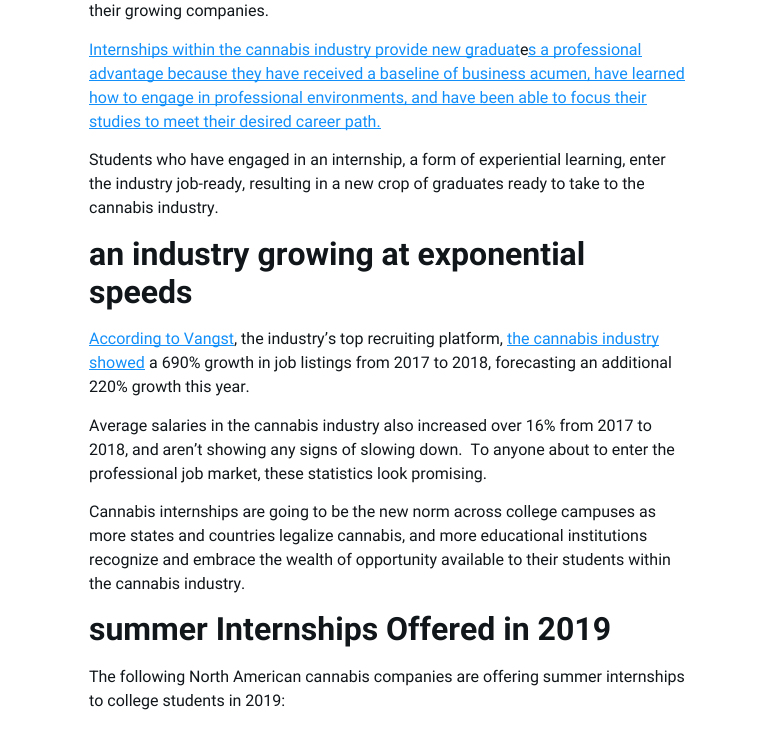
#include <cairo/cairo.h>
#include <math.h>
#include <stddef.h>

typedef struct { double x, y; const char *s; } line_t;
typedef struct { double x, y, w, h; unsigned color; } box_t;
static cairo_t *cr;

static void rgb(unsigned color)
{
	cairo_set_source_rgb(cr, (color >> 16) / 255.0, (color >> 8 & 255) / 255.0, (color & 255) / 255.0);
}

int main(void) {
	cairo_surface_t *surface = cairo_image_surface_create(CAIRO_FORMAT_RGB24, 778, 731);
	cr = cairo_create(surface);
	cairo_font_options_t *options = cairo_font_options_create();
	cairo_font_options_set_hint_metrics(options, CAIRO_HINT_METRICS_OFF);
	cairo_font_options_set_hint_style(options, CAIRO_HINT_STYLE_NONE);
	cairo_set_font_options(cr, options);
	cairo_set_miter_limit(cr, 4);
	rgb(0xffffff);
	cairo_paint(cr);
	{
		static const box_t items[] = {
			{89, 56, 431, 1, 0x128ff9},
			{528, 56, 114, 1, 0x128ff9},
			{89, 80, 596, 1, 0x128ff9},
			{89, 104, 558, 1, 0x128ff9},
			{89, 128, 292, 1, 0x128ff9},
			{89, 345, 145, 1, 0x128ff9},
			{507, 345, 152, 1, 0x128ff9},
			{89, 369, 56, 1, 0x128ff9},
		};
		for (size_t i = 0; i < sizeof items / sizeof *items; i++) {
			rgb(items[i].color);
			cairo_rectangle(cr, items[i].x, items[i].y, items[i].w, items[i].h);
			cairo_fill(cr);
		}
	}
	cairo_select_font_face(cr, "Roboto", CAIRO_FONT_SLANT_NORMAL, CAIRO_FONT_WEIGHT_NORMAL);
	cairo_set_font_size(cr, 16);
	rgb(0x11161a);
	cairo_move_to(cr, 89, 16);
	cairo_show_text(cr, "their growing companies.");
	rgb(0x128ff9);
	cairo_move_to(cr, 89, 55);
	cairo_show_text(cr, "Internships within the cannabis industry provide new graduat");
	rgb(0x11161a);
	cairo_move_to(cr, 520, 55);
	cairo_show_text(cr, "e");
	rgb(0x128ff9);
	{
		static const line_t items[] = {
			{528, 55, "s a professional"},
			{89, 79, "advantage because they have received a baseline of business acumen, have learned"},
			{89, 103, "how to engage in professional environments, and have been able to focus their"},
			{89, 127, "studies to meet their desired career path."},
		};
		for (size_t i = 0; i < sizeof items / sizeof *items; i++) {
			cairo_move_to(cr, items[i].x, items[i].y);
			cairo_show_text(cr, items[i].s);
		}
	}
	rgb(0x11161a);
	{
		static const line_t items[] = {
			{89, 165, "Students who have engaged in an internship, a form of experiential learning, enter"},
			{89, 189, "the industry job-ready, resulting in a new crop of graduates ready to take to the"},
			{89, 213, "cannabis industry."},
		};
		for (size_t i = 0; i < sizeof items / sizeof *items; i++) {
			cairo_move_to(cr, items[i].x, items[i].y);
			cairo_show_text(cr, items[i].s);
		}
	}
	cairo_select_font_face(cr, "Roboto", CAIRO_FONT_SLANT_NORMAL, CAIRO_FONT_WEIGHT_BOLD);
	cairo_set_font_size(cr, 32);
	cairo_move_to(cr, 89, 265);
	cairo_show_text(cr, "an industry growing at exponential");
	cairo_move_to(cr, 89, 303);
	cairo_show_text(cr, "speeds");
	cairo_select_font_face(cr, "Roboto", CAIRO_FONT_SLANT_NORMAL, CAIRO_FONT_WEIGHT_NORMAL);
	cairo_set_font_size(cr, 16);
	rgb(0x128ff9);
	cairo_move_to(cr, 89, 344);
	cairo_show_text(cr, "According to Vangst");
	rgb(0x11161a);
	cairo_move_to(cr, 234, 344);
	cairo_show_text(cr, ", the industry’s top recruiting platform,");
	rgb(0x128ff9);
	cairo_move_to(cr, 507, 344);
	cairo_show_text(cr, "the cannabis industry");
	cairo_move_to(cr, 89, 368);
	cairo_show_text(cr, "showed");
	rgb(0x11161a);
	{
		static const line_t items[] = {
			{149, 368, "a 690% growth in job listings from 2017 to 2018, forecasting an additional"},
			{89, 392, "220% growth this year."},
			{89, 431, "Average salaries in the cannabis industry also increased over 16% from 2017 to"},
			{89, 455, "2018, and aren’t showing any signs of slowing down.  To anyone about to enter the"},
			{89, 479, "professional job market, these statistics look promising."},
			{89, 517, "Cannabis internships are going to be the new norm across college campuses as"},
			{89, 541, "more states and countries legalize cannabis, and more educational institutions"},
			{89, 565, "recognize and embrace the wealth of opportunity available to their students within"},
			{89, 589, "the cannabis industry."},
		};
		for (size_t i = 0; i < sizeof items / sizeof *items; i++) {
			cairo_move_to(cr, items[i].x, items[i].y);
			cairo_show_text(cr, items[i].s);
		}
	}
	cairo_select_font_face(cr, "Roboto", CAIRO_FONT_SLANT_NORMAL, CAIRO_FONT_WEIGHT_BOLD);
	cairo_set_font_size(cr, 32);
	cairo_move_to(cr, 89, 640);
	cairo_show_text(cr, "summer Internships Offered in 2019");
	cairo_select_font_face(cr, "Roboto", CAIRO_FONT_SLANT_NORMAL, CAIRO_FONT_WEIGHT_NORMAL);
	cairo_set_font_size(cr, 16);
	cairo_move_to(cr, 89, 682);
	cairo_show_text(cr, "The following North American cannabis companies are offering summer internships");
	cairo_move_to(cr, 89, 706);
	cairo_show_text(cr, "to college students in 2019:");
	cairo_surface_write_to_png(surface, "page.png");
	cairo_font_options_destroy(options);
	cairo_destroy(cr);
	cairo_surface_destroy(surface);
	return 0;
}
